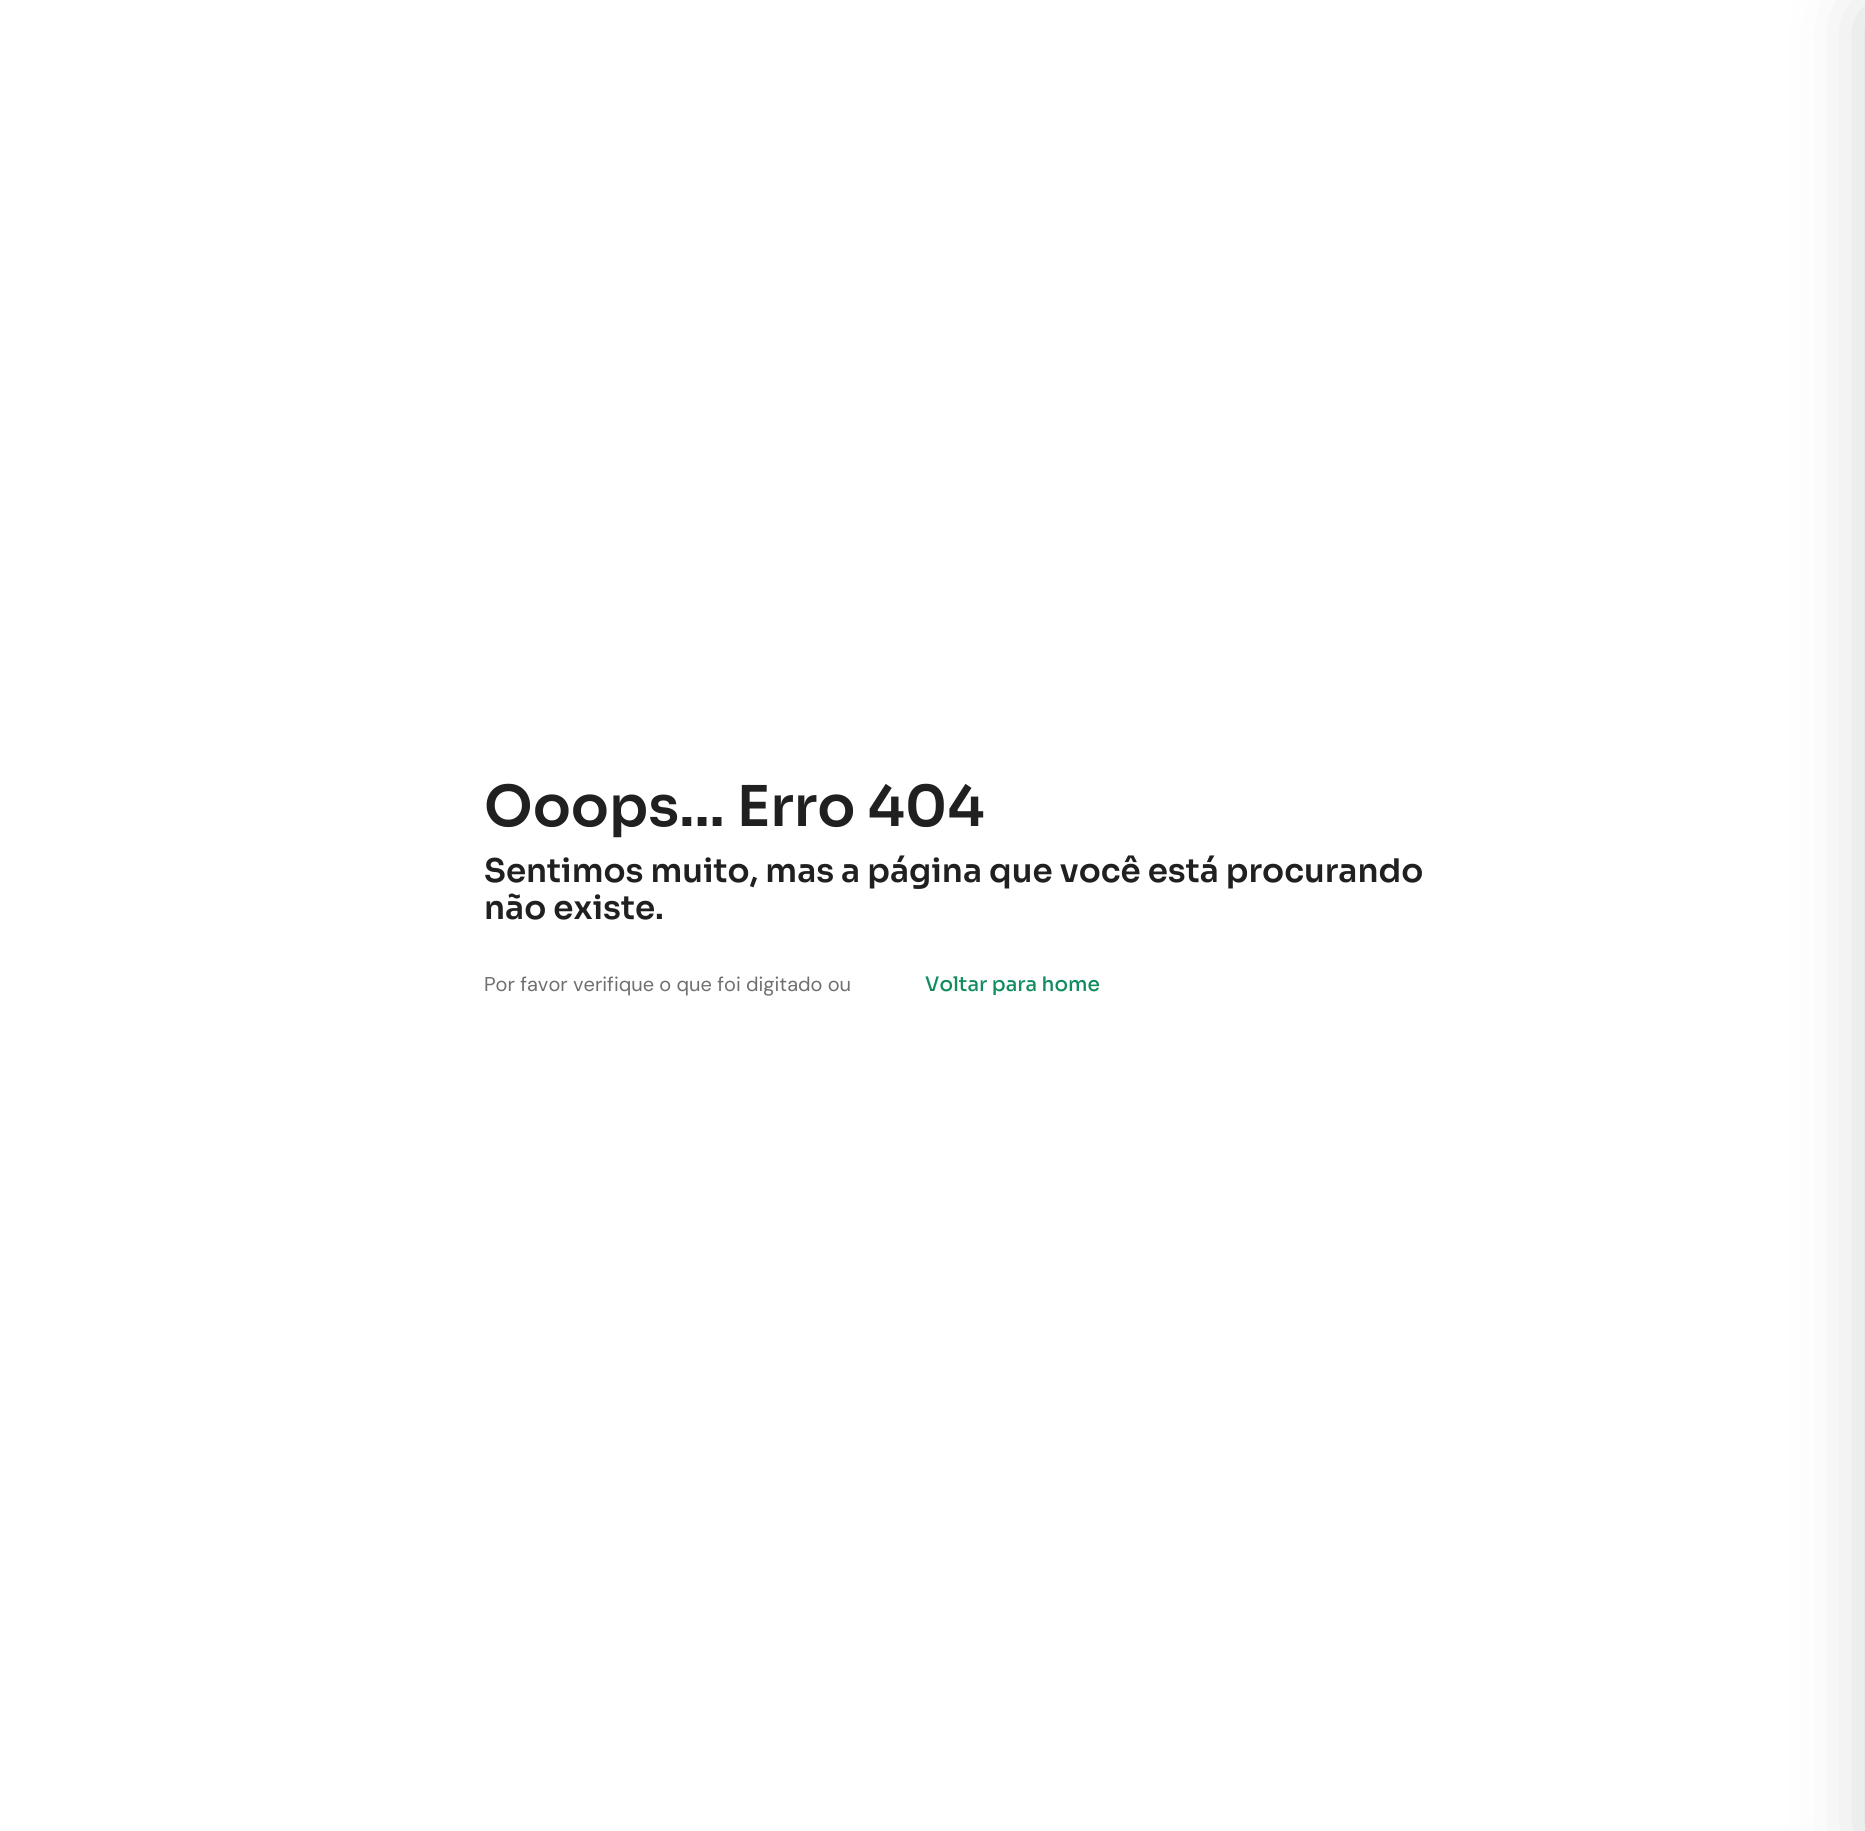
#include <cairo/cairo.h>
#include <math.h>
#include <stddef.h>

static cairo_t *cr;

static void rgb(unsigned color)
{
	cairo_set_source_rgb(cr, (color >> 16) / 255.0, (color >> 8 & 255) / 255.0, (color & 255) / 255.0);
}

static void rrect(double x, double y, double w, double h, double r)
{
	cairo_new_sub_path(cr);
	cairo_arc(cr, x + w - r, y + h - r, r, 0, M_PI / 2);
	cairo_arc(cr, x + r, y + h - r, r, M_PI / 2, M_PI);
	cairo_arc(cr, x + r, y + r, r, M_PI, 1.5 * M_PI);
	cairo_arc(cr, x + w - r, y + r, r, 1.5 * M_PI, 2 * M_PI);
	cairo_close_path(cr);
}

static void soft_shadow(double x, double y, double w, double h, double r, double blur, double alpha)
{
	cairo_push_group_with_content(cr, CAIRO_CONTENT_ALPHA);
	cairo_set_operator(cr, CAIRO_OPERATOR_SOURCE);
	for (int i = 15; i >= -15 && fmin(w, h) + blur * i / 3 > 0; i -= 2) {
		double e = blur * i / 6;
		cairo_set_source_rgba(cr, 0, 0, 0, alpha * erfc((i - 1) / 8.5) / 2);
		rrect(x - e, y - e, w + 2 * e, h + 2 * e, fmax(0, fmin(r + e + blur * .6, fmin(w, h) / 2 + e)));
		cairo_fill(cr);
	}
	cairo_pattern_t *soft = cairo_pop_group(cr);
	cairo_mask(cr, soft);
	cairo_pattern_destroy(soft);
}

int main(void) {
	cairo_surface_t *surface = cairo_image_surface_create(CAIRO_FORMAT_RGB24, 1865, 1831);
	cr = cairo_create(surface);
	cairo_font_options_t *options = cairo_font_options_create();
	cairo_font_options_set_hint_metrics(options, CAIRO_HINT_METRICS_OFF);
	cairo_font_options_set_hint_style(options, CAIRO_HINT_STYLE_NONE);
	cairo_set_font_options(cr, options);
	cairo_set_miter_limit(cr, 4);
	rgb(0xffffff);
	cairo_paint(cr);
	rgb(0x000000);
	soft_shadow(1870, 13, 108, 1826, 0, 37.5, 0.2);
	cairo_select_font_face(cr, "Sora SemiBold", CAIRO_FONT_SLANT_NORMAL, CAIRO_FONT_WEIGHT_NORMAL);
	cairo_set_font_size(cr, 56.25);
	rgb(0x202020);
	cairo_move_to(cr, 484, 826);
	cairo_show_text(cr, "Ooops... Erro 404");
	cairo_set_font_size(cr, 32.5);
	cairo_move_to(cr, 484, 882);
	cairo_show_text(cr, "Sentimos muito, mas a página que você está procurando");
	cairo_move_to(cr, 484, 919);
	cairo_show_text(cr, "não existe.");
	cairo_select_font_face(cr, "DM Sans", CAIRO_FONT_SLANT_NORMAL, CAIRO_FONT_WEIGHT_NORMAL);
	cairo_set_font_size(cr, 20);
	rgb(0x6f6f6f);
	cairo_move_to(cr, 484, 991);
	cairo_show_text(cr, "Por favor verifique o que foi digitado ou");
	cairo_select_font_face(cr, "Sora Medium", CAIRO_FONT_SLANT_NORMAL, CAIRO_FONT_WEIGHT_NORMAL);
	rgb(0x118c5f);
	cairo_move_to(cr, 925, 991);
	cairo_show_text(cr, "Voltar para home");
	cairo_surface_write_to_png(surface, "page.png");
	cairo_font_options_destroy(options);
	cairo_destroy(cr);
	cairo_surface_destroy(surface);
	return 0;
}
